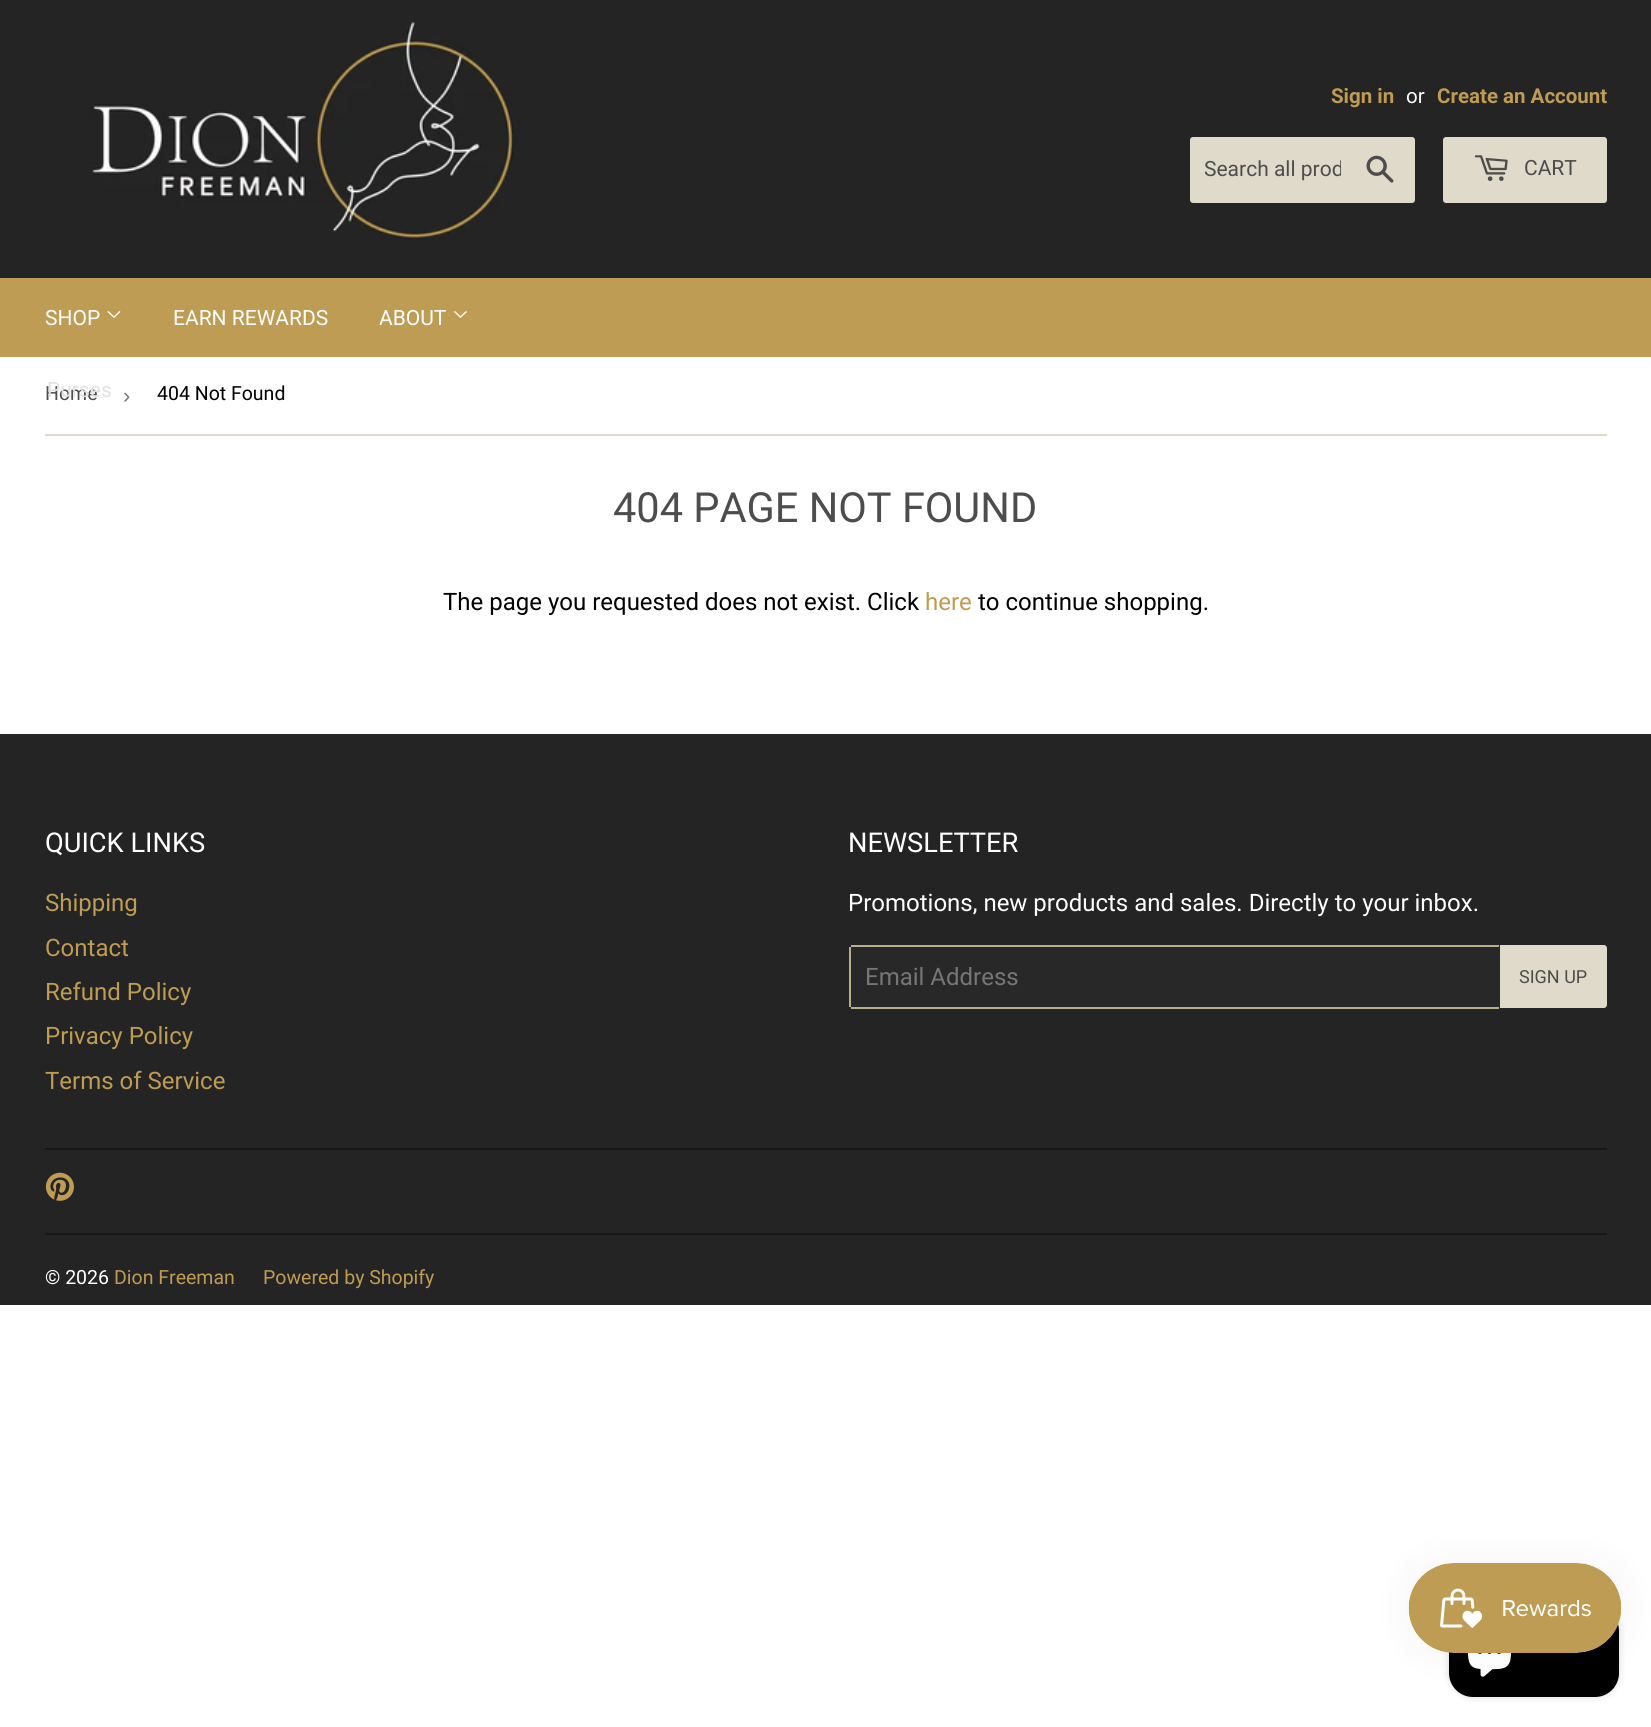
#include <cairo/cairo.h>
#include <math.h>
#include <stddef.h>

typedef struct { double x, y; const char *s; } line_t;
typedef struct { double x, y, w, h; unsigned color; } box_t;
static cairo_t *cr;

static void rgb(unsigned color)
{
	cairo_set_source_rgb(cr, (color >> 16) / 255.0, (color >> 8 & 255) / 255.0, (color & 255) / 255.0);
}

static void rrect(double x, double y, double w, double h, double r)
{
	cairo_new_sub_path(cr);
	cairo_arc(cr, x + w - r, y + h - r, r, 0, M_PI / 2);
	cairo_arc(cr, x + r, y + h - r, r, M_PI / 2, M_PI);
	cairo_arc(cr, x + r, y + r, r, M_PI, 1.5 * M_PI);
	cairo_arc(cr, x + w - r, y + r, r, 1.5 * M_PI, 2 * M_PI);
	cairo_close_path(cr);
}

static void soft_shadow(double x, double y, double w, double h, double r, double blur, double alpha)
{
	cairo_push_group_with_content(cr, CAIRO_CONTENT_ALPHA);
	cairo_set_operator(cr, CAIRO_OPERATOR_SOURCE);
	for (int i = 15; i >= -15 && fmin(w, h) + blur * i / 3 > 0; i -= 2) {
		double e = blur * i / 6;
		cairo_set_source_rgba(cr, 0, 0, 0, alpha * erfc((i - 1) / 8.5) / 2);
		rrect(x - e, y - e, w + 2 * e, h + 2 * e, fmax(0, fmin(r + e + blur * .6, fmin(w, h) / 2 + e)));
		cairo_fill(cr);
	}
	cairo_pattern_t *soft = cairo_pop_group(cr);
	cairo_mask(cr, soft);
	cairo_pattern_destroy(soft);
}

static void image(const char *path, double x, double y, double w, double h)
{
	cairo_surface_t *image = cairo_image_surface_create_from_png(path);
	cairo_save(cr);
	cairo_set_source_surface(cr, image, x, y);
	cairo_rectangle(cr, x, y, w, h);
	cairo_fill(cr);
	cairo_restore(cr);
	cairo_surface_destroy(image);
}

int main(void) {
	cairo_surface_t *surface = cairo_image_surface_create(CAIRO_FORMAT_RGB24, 1651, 1727);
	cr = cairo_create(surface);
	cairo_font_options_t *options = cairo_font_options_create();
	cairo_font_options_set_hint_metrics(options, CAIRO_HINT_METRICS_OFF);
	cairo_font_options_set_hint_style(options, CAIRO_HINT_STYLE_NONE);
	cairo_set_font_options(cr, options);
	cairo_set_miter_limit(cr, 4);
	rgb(0xffffff);
	cairo_paint(cr);
	rgb(0x242424);
	cairo_rectangle(cr, 0, 0, 1651, 278);
	cairo_fill(cr);
	image("img/1.png", 91, 22, 424, 220);
	rgb(0xe0daca);
	rrect(1190, 137, 225, 66, 3);
	cairo_fill(cr);
	image("img/2.png", 1366, 155, 28, 28);
	rrect(1443, 137, 164, 66, 3);
	cairo_fill(cr);
	image("img/3.png", 1474, 155, 34, 26);
	rgb(0xbe9c54);
	cairo_rectangle(cr, 0, 278, 1651, 79);
	cairo_fill(cr);
	image("img/4.png", 107, 311, 14, 7);
	image("img/5.png", 454, 311, 13, 7);
	rgb(0xe0daca);
	cairo_rectangle(cr, 45, 434, 1562, 2);
	cairo_fill(cr);
	rgb(0x242424);
	cairo_rectangle(cr, 0, 734, 1651, 571);
	cairo_fill(cr);
	rgb(0x282828);
	rrect(849, 945, 651, 63, 3);
	cairo_fill(cr);
	{
		static const box_t items[] = {
			{851, 945, 648, 2, 0xbaad8a},
			{851, 1007, 648, 2, 0xbaad8a},
			{849, 947, 2, 60, 0xbaad8a},
		};
		for (size_t i = 0; i < sizeof items / sizeof *items; i++) {
			rgb(items[i].color);
			cairo_rectangle(cr, items[i].x, items[i].y, items[i].w, items[i].h);
			cairo_fill(cr);
		}
	}
	rgb(0xe0daca);
	cairo_new_path(cr);
	cairo_move_to(cr, 1500, 945);
	cairo_line_to(cr, 1604, 945);
	cairo_curve_to(cr, 1605.5, 945, 1607, 946.5, 1607, 948);
	cairo_line_to(cr, 1607, 1005);
	cairo_curve_to(cr, 1607, 1006.5, 1605.5, 1008, 1604, 1008);
	cairo_line_to(cr, 1500, 1008);
	cairo_close_path(cr);
	cairo_fill(cr);
	rgb(0x171717);
	cairo_rectangle(cr, 45, 1148, 1562, 2);
	cairo_fill(cr);
	image("img/6.png", 45, 1172, 29, 29);
	cairo_rectangle(cr, 45, 1233, 1562, 2);
	cairo_fill(cr);
	rgb(0x000000);
	soft_shadow(1449, 1607, 170, 90, 24, 4, 0.15);
	rgb(0x000000);
	rrect(1449, 1607, 170, 90, 24);
	cairo_fill(cr);
	image("img/8.png", 1467, 1653, 44, 24);
	rgb(0x000000);
	soft_shadow(1409, 1563, 213, 90, 45, 19, 0.05);
	image("img/7.png", 1408, 1563, 214, 90);
	cairo_select_font_face(cr, "Roboto", CAIRO_FONT_SLANT_NORMAL, CAIRO_FONT_WEIGHT_BOLD);
	cairo_set_font_size(cr, 20.5);
	rgb(0xbe9c54);
	cairo_move_to(cr, 1331, 103);
	cairo_show_text(cr, "Sign in");
	cairo_select_font_face(cr, "Roboto", CAIRO_FONT_SLANT_NORMAL, CAIRO_FONT_WEIGHT_NORMAL);
	rgb(0xffffff);
	cairo_move_to(cr, 1406, 103);
	cairo_show_text(cr, "or");
	cairo_select_font_face(cr, "Roboto", CAIRO_FONT_SLANT_NORMAL, CAIRO_FONT_WEIGHT_BOLD);
	rgb(0xbe9c54);
	cairo_move_to(cr, 1437, 103);
	cairo_show_text(cr, "Create an Account");
	cairo_save(cr);
	cairo_rectangle(cr, 1205, 158, 136, 24);
	cairo_clip(cr);
	cairo_select_font_face(cr, "Roboto", CAIRO_FONT_SLANT_NORMAL, CAIRO_FONT_WEIGHT_NORMAL);
	cairo_set_font_size(cr, 21);
	rgb(0x4d4d4d);
	cairo_move_to(cr, 1204, 176);
	cairo_show_text(cr, "Search all prod");
	cairo_restore(cr);
	cairo_select_font_face(cr, "Roboto", CAIRO_FONT_SLANT_NORMAL, CAIRO_FONT_WEIGHT_NORMAL);
	cairo_set_font_size(cr, 21);
	rgb(0x4d4d4d);
	cairo_move_to(cr, 1524, 175);
	cairo_show_text(cr, "CART");
	rgb(0xffffff);
	{
		static const line_t items[] = {
			{45, 325, "SHOP"},
			{173, 325, "EARN REWARDS"},
			{379, 325, "ABOUT"},
		};
		for (size_t i = 0; i < sizeof items / sizeof *items; i++) {
			cairo_move_to(cr, items[i].x, items[i].y);
			cairo_show_text(cr, items[i].s);
		}
	}
	cairo_set_font_size(cr, 19.5);
	rgb(0x4d4d4d);
	cairo_move_to(cr, 45, 400);
	cairo_show_text(cr, "Home");
	cairo_set_font_size(cr, 21);
	rgb(0xe2e2e2);
	cairo_move_to(cr, 47, 397);
	cairo_show_text(cr, "Purses");
	cairo_select_font_face(cr, "Liberation Sans", CAIRO_FONT_SLANT_NORMAL, CAIRO_FONT_WEIGHT_NORMAL);
	cairo_set_font_size(cr, 22);
	rgb(0x767676);
	cairo_move_to(cr, 123, 403);
	cairo_show_text(cr, "›");
	cairo_select_font_face(cr, "Roboto", CAIRO_FONT_SLANT_NORMAL, CAIRO_FONT_WEIGHT_NORMAL);
	cairo_set_font_size(cr, 19.5);
	rgb(0x000000);
	cairo_move_to(cr, 157, 400);
	cairo_show_text(cr, "404 Not Found");
	cairo_set_font_size(cr, 41.5);
	rgb(0x4d4d4d);
	cairo_move_to(cr, 613, 522);
	cairo_show_text(cr, "404 PAGE NOT FOUND");
	cairo_set_font_size(cr, 24);
	rgb(0x000000);
	cairo_move_to(cr, 443, 610);
	cairo_show_text(cr, "The page you requested does not exist. Click");
	rgb(0xbe9c54);
	cairo_move_to(cr, 925, 610);
	cairo_show_text(cr, "here");
	rgb(0x000000);
	cairo_move_to(cr, 978, 610);
	cairo_show_text(cr, "to continue shopping.");
	cairo_set_font_size(cr, 27.25);
	rgb(0xffffff);
	cairo_move_to(cr, 45, 852);
	cairo_show_text(cr, "QUICK LINKS");
	cairo_set_font_size(cr, 24);
	rgb(0xbe9c54);
	{
		static const line_t items[] = {
			{45, 911, "Shipping"},
			{45, 956, "Contact"},
			{45, 1000, "Refund Policy"},
			{45, 1044, "Privacy Policy"},
			{45, 1089, "Terms of Service"},
		};
		for (size_t i = 0; i < sizeof items / sizeof *items; i++) {
			cairo_move_to(cr, items[i].x, items[i].y);
			cairo_show_text(cr, items[i].s);
		}
	}
	cairo_set_font_size(cr, 27.25);
	rgb(0xffffff);
	cairo_move_to(cr, 848, 852);
	cairo_show_text(cr, "NEWSLETTER");
	cairo_set_font_size(cr, 24);
	cairo_move_to(cr, 848, 911);
	cairo_show_text(cr, "Promotions, new products and sales. Directly to your inbox.");
	rgb(0x767676);
	cairo_move_to(cr, 865, 985);
	cairo_show_text(cr, "Email Address");
	cairo_set_font_size(cr, 18);
	rgb(0x4d4d4d);
	cairo_move_to(cr, 1519, 983);
	cairo_show_text(cr, "SIGN UP");
	cairo_set_font_size(cr, 19.5);
	rgb(0xffffff);
	cairo_move_to(cr, 45, 1284);
	cairo_show_text(cr, "© 2026");
	rgb(0xbe9c54);
	cairo_move_to(cr, 114, 1284);
	cairo_show_text(cr, "Dion Freeman");
	cairo_move_to(cr, 263, 1284);
	cairo_show_text(cr, "Powered by Shopify");
	cairo_surface_write_to_png(surface, "page.png");
	cairo_font_options_destroy(options);
	cairo_destroy(cr);
	cairo_surface_destroy(surface);
	return 0;
}
